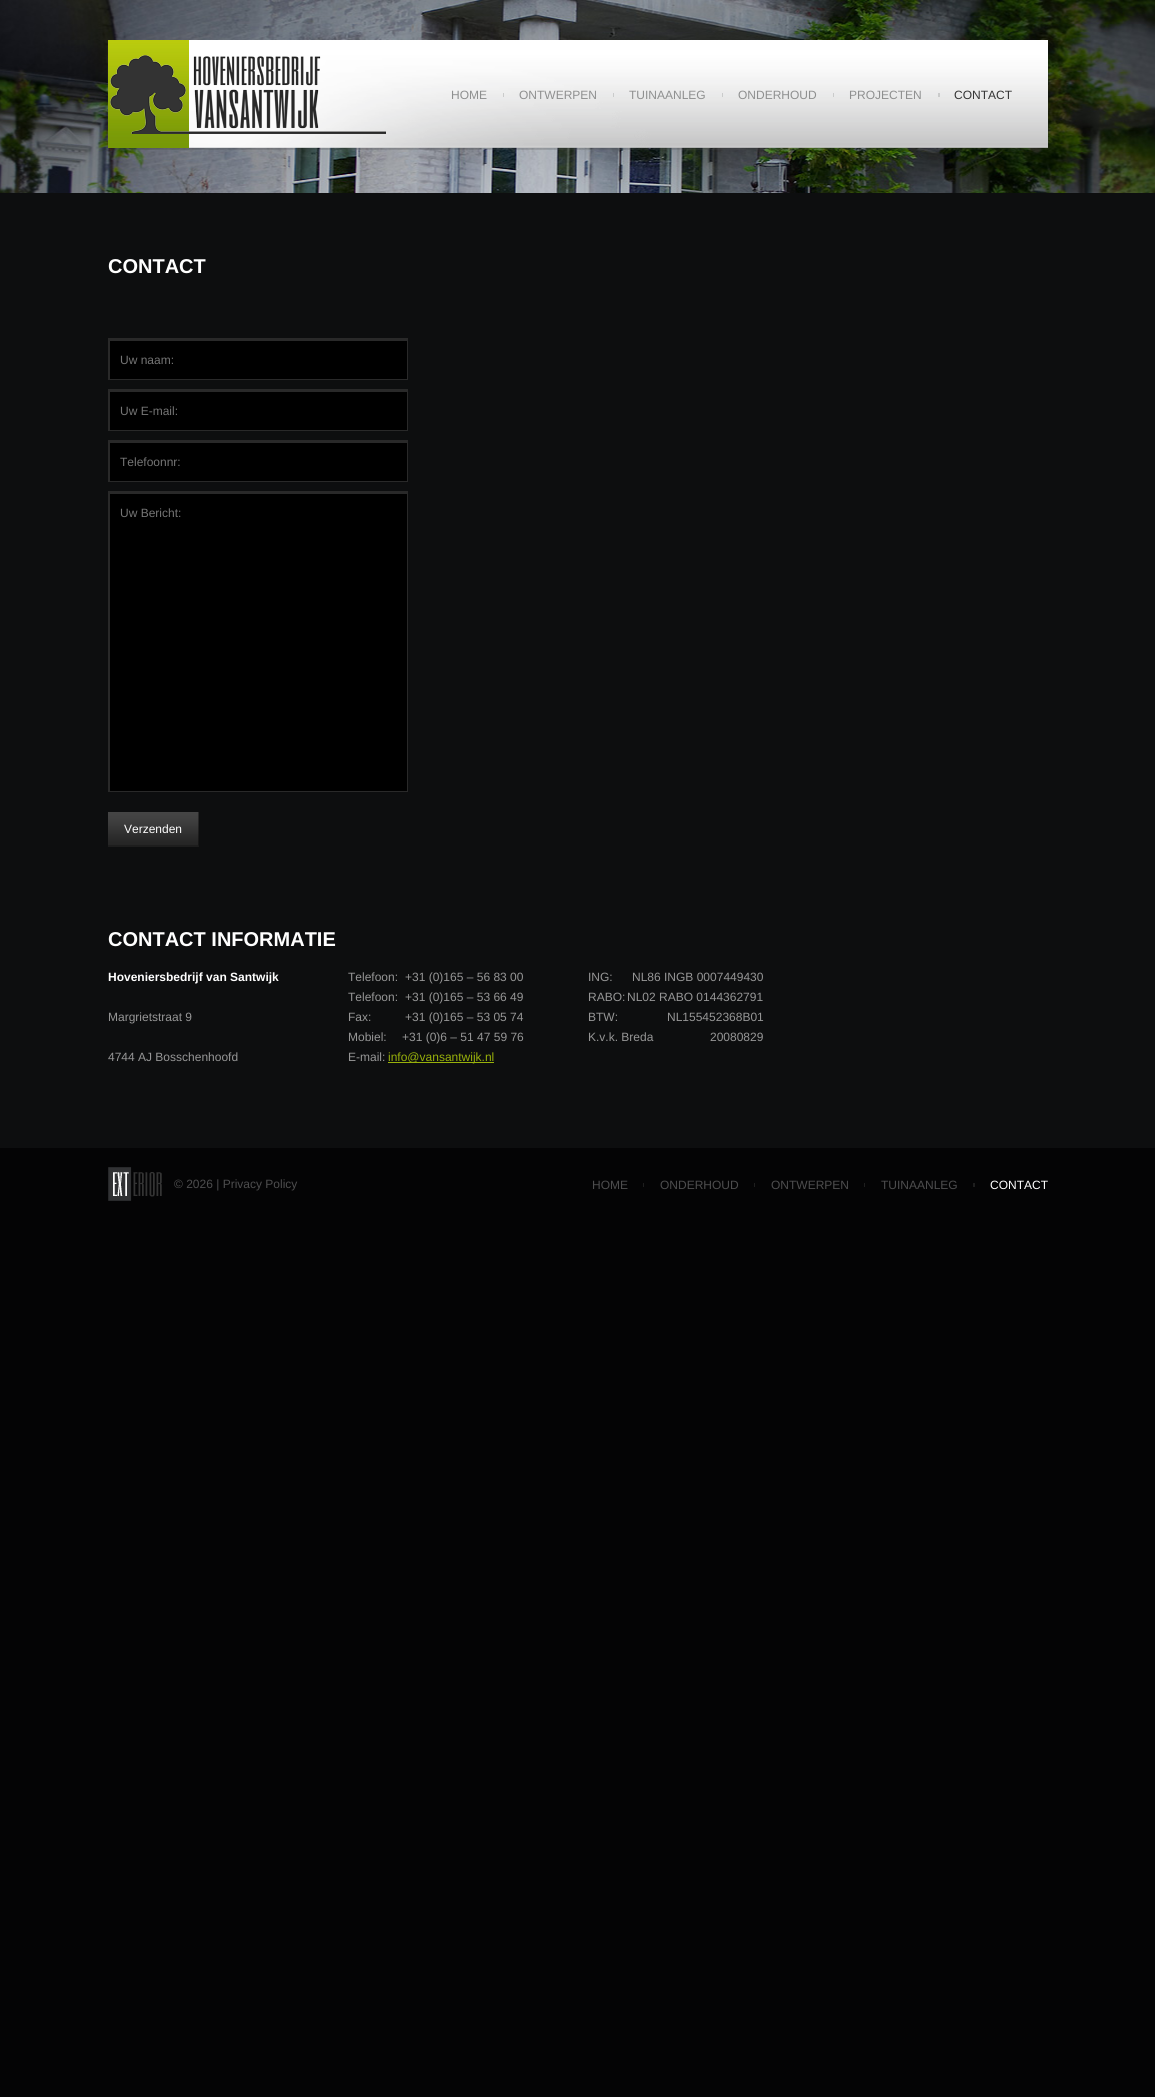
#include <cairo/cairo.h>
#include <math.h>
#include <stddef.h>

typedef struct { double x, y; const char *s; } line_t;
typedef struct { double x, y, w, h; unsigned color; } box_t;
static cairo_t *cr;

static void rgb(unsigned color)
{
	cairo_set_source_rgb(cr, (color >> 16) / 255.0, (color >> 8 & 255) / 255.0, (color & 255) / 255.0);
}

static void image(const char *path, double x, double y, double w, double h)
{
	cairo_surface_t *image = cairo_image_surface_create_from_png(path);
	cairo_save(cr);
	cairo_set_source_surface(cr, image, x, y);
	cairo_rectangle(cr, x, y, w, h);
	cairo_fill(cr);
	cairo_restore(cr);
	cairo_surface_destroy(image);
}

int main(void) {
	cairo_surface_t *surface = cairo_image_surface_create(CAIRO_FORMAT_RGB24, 1155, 2097);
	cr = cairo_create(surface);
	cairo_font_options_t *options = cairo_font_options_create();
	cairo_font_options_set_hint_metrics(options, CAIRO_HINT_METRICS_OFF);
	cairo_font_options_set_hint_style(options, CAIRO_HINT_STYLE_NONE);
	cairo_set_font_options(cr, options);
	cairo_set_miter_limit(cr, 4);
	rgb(0x040405);
	cairo_paint(cr);
	image("img/1.png", 0, 0, 1155, 193);
	image("img/2.png", 107, 40, 942, 110);
	image("img/3.png", 108, 40, 81, 108);
	image("img/4.png", 110, 55, 276, 79);
	{
		static const box_t items[] = {
			{503, 93, 1, 4, 0xcacbcb},
			{613, 93, 1, 4, 0xcacbcb},
			{722, 93, 1, 4, 0xcacbcb},
			{833, 93, 1, 4, 0xcacbcb},
			{938, 93, 2, 4, 0xcacbcb},
			{0, 193, 1155, 955, 0x0d0e0f},
			{110, 341, 297, 38, 0x000000},
			{108, 338, 300, 3, 0x292929},
			{407, 338, 1, 42, 0x292929},
			{108, 379, 300, 1, 0x292929},
			{108, 338, 2, 42, 0x292929},
			{110, 392, 297, 38, 0x000000},
			{108, 389, 300, 3, 0x292929},
			{407, 389, 1, 42, 0x292929},
			{108, 430, 300, 1, 0x292929},
			{108, 389, 2, 42, 0x292929},
			{110, 443, 297, 38, 0x000000},
			{108, 440, 300, 3, 0x292929},
			{407, 440, 1, 42, 0x292929},
			{108, 481, 300, 1, 0x292929},
			{108, 440, 2, 42, 0x292929},
			{110, 494, 297, 297, 0x000000},
			{108, 491, 300, 3, 0x292929},
			{407, 491, 1, 301, 0x292929},
			{108, 791, 300, 1, 0x292929},
			{108, 491, 2, 301, 0x292929},
		};
		for (size_t i = 0; i < sizeof items / sizeof *items; i++) {
			rgb(items[i].color);
			cairo_rectangle(cr, items[i].x, items[i].y, items[i].w, items[i].h);
			cairo_fill(cr);
		}
	}
	image("img/5.png", 108, 812, 91, 35);
	cairo_set_source_rgba(cr, 0, 0, 0, 0.4);
	cairo_new_path(cr);
	cairo_move_to(cr, 199, 812);
	cairo_line_to(cr, 199, 847);
	cairo_line_to(cr, 198, 845);
	cairo_line_to(cr, 198, 812);
	cairo_close_path(cr);
	cairo_fill(cr);
	cairo_set_source_rgba(cr, 0, 0, 0, 0.2);
	cairo_new_path(cr);
	cairo_move_to(cr, 199, 847);
	cairo_line_to(cr, 108, 847);
	cairo_line_to(cr, 108, 845);
	cairo_line_to(cr, 198, 845);
	cairo_close_path(cr);
	cairo_fill(cr);
	rgb(0x98b10a);
	cairo_rectangle(cr, 388, 1062, 106, 1);
	cairo_fill(cr);
	image("img/6.png", 108, 1167, 54, 34);
	{
		static const box_t items[] = {
			{643, 1183, 1, 4, 0x1e1e1e},
			{754, 1183, 1, 4, 0x1e1e1e},
			{864, 1183, 1, 4, 0x1e1e1e},
			{973, 1183, 2, 4, 0x1e1e1e},
		};
		for (size_t i = 0; i < sizeof items / sizeof *items; i++) {
			rgb(items[i].color);
			cairo_rectangle(cr, items[i].x, items[i].y, items[i].w, items[i].h);
			cairo_fill(cr);
		}
	}
	cairo_select_font_face(cr, "Liberation Sans", CAIRO_FONT_SLANT_NORMAL, CAIRO_FONT_WEIGHT_NORMAL);
	cairo_set_font_size(cr, 12);
	rgb(0x8e8f8f);
	{
		static const line_t items[] = {
			{451, 99, "HOME"},
			{519, 99, "ONTWERPEN"},
			{629, 99, "TUINAANLEG"},
			{738, 99, "ONDERHOUD"},
			{849, 99, "PROJECTEN"},
		};
		for (size_t i = 0; i < sizeof items / sizeof *items; i++) {
			cairo_move_to(cr, items[i].x, items[i].y);
			cairo_show_text(cr, items[i].s);
		}
	}
	rgb(0x343434);
	cairo_move_to(cr, 954, 99);
	cairo_show_text(cr, "CONTACT");
	cairo_select_font_face(cr, "Liberation Sans", CAIRO_FONT_SLANT_NORMAL, CAIRO_FONT_WEIGHT_BOLD);
	cairo_set_font_size(cr, 20);
	rgb(0xffffff);
	cairo_move_to(cr, 108, 273);
	cairo_show_text(cr, "CONTACT");
	cairo_select_font_face(cr, "Liberation Sans", CAIRO_FONT_SLANT_NORMAL, CAIRO_FONT_WEIGHT_NORMAL);
	cairo_set_font_size(cr, 12);
	rgb(0x757575);
	{
		static const line_t items[] = {
			{120, 364, "Uw naam:"},
			{120, 415, "Uw E-mail:"},
			{120, 466, "Telefoonnr:"},
			{120, 517, "Uw Bericht:"},
		};
		for (size_t i = 0; i < sizeof items / sizeof *items; i++) {
			cairo_move_to(cr, items[i].x, items[i].y);
			cairo_show_text(cr, items[i].s);
		}
	}
	rgb(0xffffff);
	cairo_move_to(cr, 124, 833);
	cairo_show_text(cr, "Verzenden");
	cairo_select_font_face(cr, "Liberation Sans", CAIRO_FONT_SLANT_NORMAL, CAIRO_FONT_WEIGHT_BOLD);
	cairo_set_font_size(cr, 20);
	cairo_move_to(cr, 108, 946);
	cairo_show_text(cr, "CONTACT INFORMATIE");
	cairo_set_font_size(cr, 12);
	cairo_move_to(cr, 108, 981);
	cairo_show_text(cr, "Hoveniersbedrijf van Santwijk");
	cairo_select_font_face(cr, "Liberation Sans", CAIRO_FONT_SLANT_NORMAL, CAIRO_FONT_WEIGHT_NORMAL);
	rgb(0x969696);
	{
		static const line_t items[] = {
			{108, 1021, "Margrietstraat 9"},
			{108, 1061, "4744 AJ Bosschenhoofd"},
			{348, 981, "Telefoon:"},
			{405, 981, "+31 (0)165 – 56 83 00"},
			{348, 1001, "Telefoon:"},
			{405, 1001, "+31 (0)165 – 53 66 49"},
			{348, 1021, "Fax:"},
			{405, 1021, "+31 (0)165 – 53 05 74"},
			{348, 1041, "Mobiel:"},
			{402, 1041, "+31 (0)6 – 51 47 59 76"},
			{348, 1061, "E-mail:"},
		};
		for (size_t i = 0; i < sizeof items / sizeof *items; i++) {
			cairo_move_to(cr, items[i].x, items[i].y);
			cairo_show_text(cr, items[i].s);
		}
	}
	rgb(0x98b10a);
	cairo_move_to(cr, 388, 1061);
	cairo_show_text(cr, "info@vansantwijk.nl");
	rgb(0x969696);
	{
		static const line_t items[] = {
			{588, 981, "ING:"},
			{632, 981, "NL86 INGB 0007449430"},
			{588, 1001, "RABO:"},
			{627, 1001, "NL02 RABO 0144362791"},
			{588, 1021, "BTW:"},
			{667, 1021, "NL155452368B01"},
			{588, 1041, "K.v.k. Breda"},
			{710, 1041, "20080829"},
		};
		for (size_t i = 0; i < sizeof items / sizeof *items; i++) {
			cairo_move_to(cr, items[i].x, items[i].y);
			cairo_show_text(cr, items[i].s);
		}
	}
	rgb(0x4d4d4e);
	{
		static const line_t items[] = {
			{174, 1188, "© 2026 | Privacy Policy"},
			{592, 1189, "HOME"},
			{660, 1189, "ONDERHOUD"},
			{771, 1189, "ONTWERPEN"},
			{881, 1189, "TUINAANLEG"},
		};
		for (size_t i = 0; i < sizeof items / sizeof *items; i++) {
			cairo_move_to(cr, items[i].x, items[i].y);
			cairo_show_text(cr, items[i].s);
		}
	}
	rgb(0xffffff);
	cairo_move_to(cr, 990, 1189);
	cairo_show_text(cr, "CONTACT");
	cairo_surface_write_to_png(surface, "page.png");
	cairo_font_options_destroy(options);
	cairo_destroy(cr);
	cairo_surface_destroy(surface);
	return 0;
}
